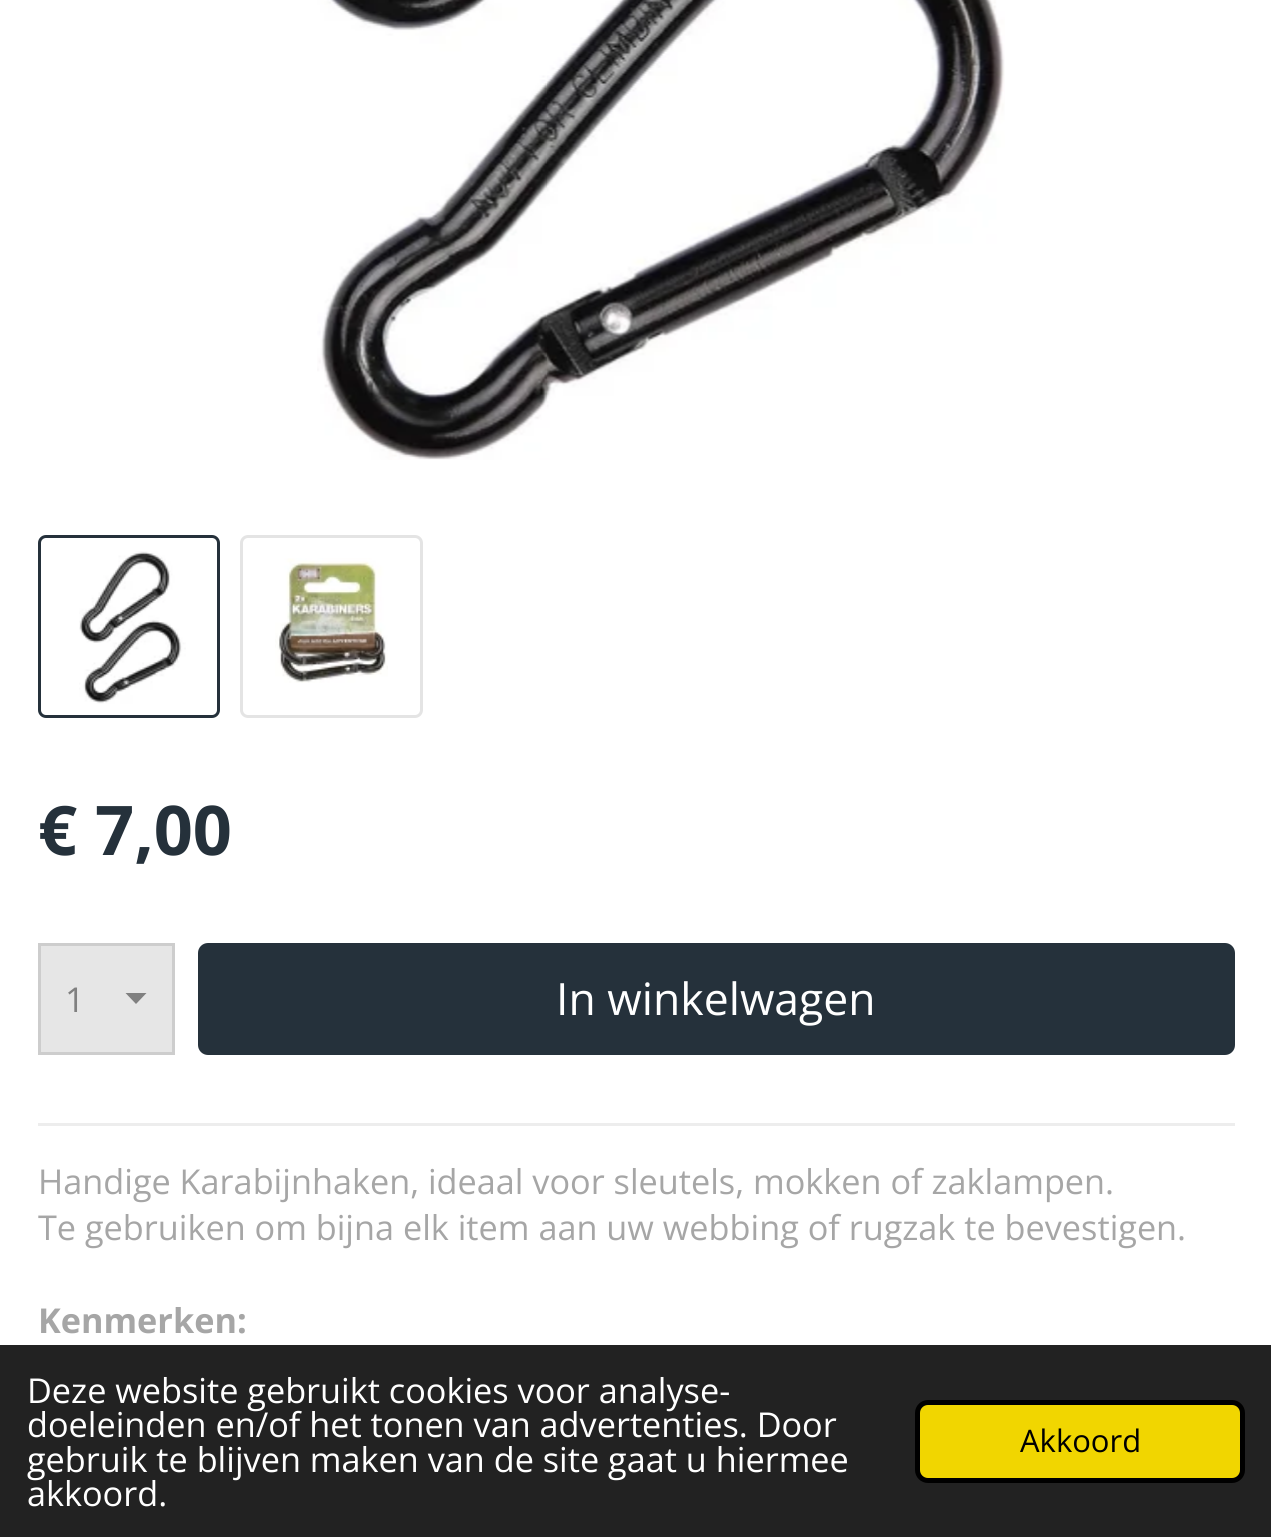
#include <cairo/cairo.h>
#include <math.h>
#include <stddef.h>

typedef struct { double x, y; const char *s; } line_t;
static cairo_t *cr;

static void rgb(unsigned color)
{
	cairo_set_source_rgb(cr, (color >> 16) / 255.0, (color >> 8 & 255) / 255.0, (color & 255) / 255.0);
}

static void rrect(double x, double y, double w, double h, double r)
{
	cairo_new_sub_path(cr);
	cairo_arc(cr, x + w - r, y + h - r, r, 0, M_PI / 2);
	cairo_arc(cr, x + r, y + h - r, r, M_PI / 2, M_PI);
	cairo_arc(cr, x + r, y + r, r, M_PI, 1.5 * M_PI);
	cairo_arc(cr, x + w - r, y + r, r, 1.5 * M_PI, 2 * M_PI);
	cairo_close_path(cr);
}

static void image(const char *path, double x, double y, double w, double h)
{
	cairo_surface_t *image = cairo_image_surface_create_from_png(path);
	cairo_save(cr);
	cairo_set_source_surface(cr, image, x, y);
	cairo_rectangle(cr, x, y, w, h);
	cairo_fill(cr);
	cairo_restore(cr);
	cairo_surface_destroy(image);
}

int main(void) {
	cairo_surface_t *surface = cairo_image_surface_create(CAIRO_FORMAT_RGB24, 1271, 1537);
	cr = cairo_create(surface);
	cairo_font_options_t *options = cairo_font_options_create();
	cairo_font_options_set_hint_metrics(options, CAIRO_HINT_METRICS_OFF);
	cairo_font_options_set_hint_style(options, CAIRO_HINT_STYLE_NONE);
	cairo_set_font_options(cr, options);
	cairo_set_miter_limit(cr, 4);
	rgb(0xffffff);
	cairo_paint(cr);
	image("img/1.png", 317, 0, 688, 460);
	rrect(39.5, 536.5, 179, 180, 6.5);
	rgb(0x25313b);
	cairo_set_line_width(cr, 3);
	cairo_stroke(cr);
	image("img/2.png", 79, 551, 107, 153);
	rrect(241.5, 536.5, 180, 180, 6.5);
	rgb(0xe4e4e4);
	cairo_stroke(cr);
	image("img/3.png", 275, 558, 113, 125);
	rgb(0xe6e6e6);
	cairo_rectangle(cr, 41, 946, 131, 106);
	cairo_fill(cr);
	rgb(0x808080);
	cairo_new_path(cr);
	cairo_move_to(cr, 136, 1004);
	cairo_line_to(cr, 125.5, 993);
	cairo_line_to(cr, 146.5, 993);
	cairo_close_path(cr);
	cairo_fill(cr);
	cairo_rectangle(cr, 39.5, 944.5, 134, 109);
	rgb(0xcdcdcd);
	cairo_stroke(cr);
	rgb(0x25313b);
	rrect(198, 943, 1037, 112, 10);
	cairo_fill(cr);
	rgb(0xededed);
	cairo_rectangle(cr, 38, 1123, 1197, 3);
	cairo_fill(cr);
	rgb(0x222222);
	cairo_rectangle(cr, 0, 1345, 1271, 192);
	cairo_fill(cr);
	rgb(0xf1d600);
	rrect(917.5, 1402.5, 325, 78, 10.5);
	cairo_fill_preserve(cr);
	rgb(0x000000);
	cairo_set_line_width(cr, 5);
	cairo_stroke(cr);
	cairo_select_font_face(cr, "Open Sans", CAIRO_FONT_SLANT_NORMAL, CAIRO_FONT_WEIGHT_BOLD);
	cairo_set_font_size(cr, 68.5);
	rgb(0x25313b);
	cairo_move_to(cr, 38, 855);
	cairo_show_text(cr, "€ 7,00");
	cairo_select_font_face(cr, "Open Sans", CAIRO_FONT_SLANT_NORMAL, CAIRO_FONT_WEIGHT_NORMAL);
	cairo_set_font_size(cr, 34.25);
	rgb(0x808080);
	cairo_move_to(cr, 65, 1012);
	cairo_show_text(cr, "1");
	cairo_set_font_size(cr, 44.5);
	rgb(0xffffff);
	cairo_move_to(cr, 556, 1015);
	cairo_show_text(cr, "In winkelwagen");
	cairo_set_font_size(cr, 34.25);
	rgb(0xa6a6a6);
	cairo_move_to(cr, 38, 1194);
	cairo_show_text(cr, "Handige Karabijnhaken, ideaal voor sleutels, mokken of zaklampen.");
	cairo_move_to(cr, 38, 1240);
	cairo_show_text(cr, "Te gebruiken om bijna elk item aan uw webbing of rugzak te bevestigen.");
	cairo_select_font_face(cr, "Open Sans", CAIRO_FONT_SLANT_NORMAL, CAIRO_FONT_WEIGHT_BOLD);
	cairo_move_to(cr, 38, 1333);
	cairo_show_text(cr, "Kenmerken:");
	cairo_select_font_face(cr, "Open Sans", CAIRO_FONT_SLANT_NORMAL, CAIRO_FONT_WEIGHT_NORMAL);
	rgb(0xffffff);
	{
		static const line_t items[] = {
			{27, 1403, "Deze website gebruikt cookies voor analyse-"},
			{27, 1437, "doeleinden en/of het tonen van advertenties. Door"},
			{27, 1472, "gebruik te blijven maken van de site gaat u hiermee"},
			{27, 1506, "akkoord."},
		};
		for (size_t i = 0; i < sizeof items / sizeof *items; i++) {
			cairo_move_to(cr, items[i].x, items[i].y);
			cairo_show_text(cr, items[i].s);
		}
	}
	cairo_set_font_size(cr, 31);
	rgb(0x000000);
	cairo_move_to(cr, 1020, 1452);
	cairo_show_text(cr, "Akkoord");
	cairo_surface_write_to_png(surface, "page.png");
	cairo_font_options_destroy(options);
	cairo_destroy(cr);
	cairo_surface_destroy(surface);
	return 0;
}
